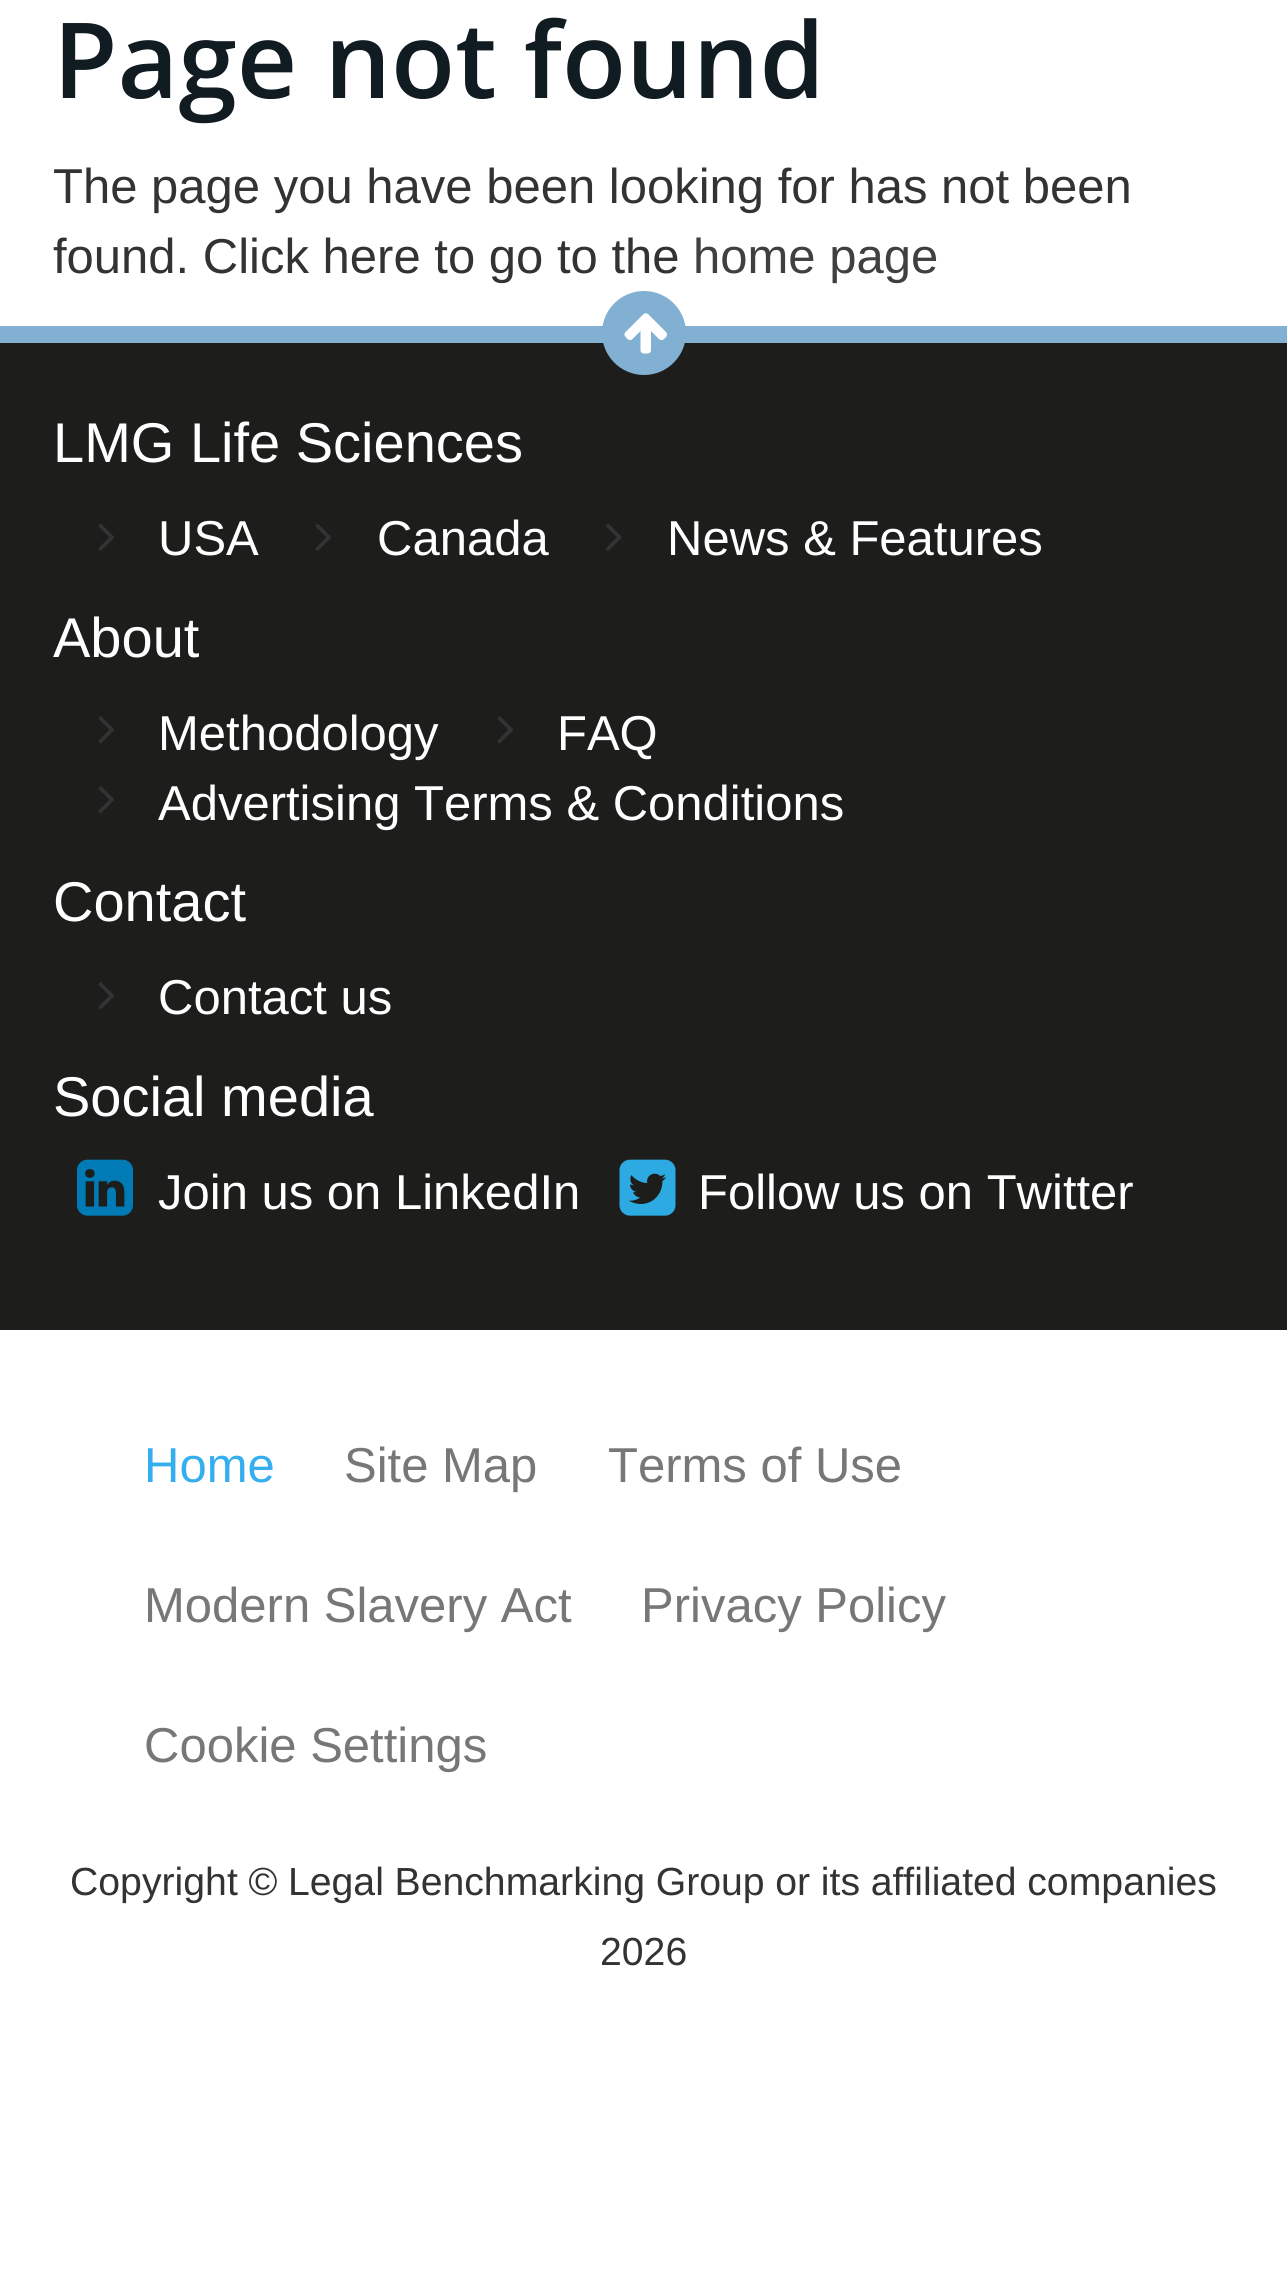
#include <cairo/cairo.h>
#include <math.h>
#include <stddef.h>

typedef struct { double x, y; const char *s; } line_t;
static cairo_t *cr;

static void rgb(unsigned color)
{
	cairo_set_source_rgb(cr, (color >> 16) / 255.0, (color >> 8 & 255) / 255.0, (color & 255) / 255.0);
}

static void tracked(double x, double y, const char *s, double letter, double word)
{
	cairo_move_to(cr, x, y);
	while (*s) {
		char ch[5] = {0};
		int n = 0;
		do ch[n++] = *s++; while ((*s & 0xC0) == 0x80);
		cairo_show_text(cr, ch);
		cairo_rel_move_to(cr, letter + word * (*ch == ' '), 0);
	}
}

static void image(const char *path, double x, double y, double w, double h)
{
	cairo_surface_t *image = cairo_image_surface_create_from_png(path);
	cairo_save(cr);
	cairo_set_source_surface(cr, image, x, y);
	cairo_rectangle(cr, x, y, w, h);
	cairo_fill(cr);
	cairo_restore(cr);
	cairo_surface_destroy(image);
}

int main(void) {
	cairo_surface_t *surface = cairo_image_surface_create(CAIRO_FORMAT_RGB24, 1287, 2278);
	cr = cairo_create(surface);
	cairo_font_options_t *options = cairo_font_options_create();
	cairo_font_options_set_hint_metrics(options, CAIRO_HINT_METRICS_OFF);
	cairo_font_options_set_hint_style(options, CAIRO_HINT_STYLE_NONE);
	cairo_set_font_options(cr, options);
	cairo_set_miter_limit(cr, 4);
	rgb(0xffffff);
	cairo_paint(cr);
	rgb(0x1d1d1b);
	cairo_rectangle(cr, 0, 343, 1287, 987);
	cairo_fill(cr);
	rgb(0x81b0d2);
	cairo_rectangle(cr, 0, 326, 1287, 17);
	cairo_fill(cr);
	cairo_arc(cr, 644, 333, 42, 0, 2 * M_PI);
	cairo_fill(cr);
	image("img/1.png", 624, 313, 43, 41);
	image("img/2.png", 98, 523, 16, 28);
	image("img/2.png", 315, 523, 16, 28);
	image("img/3.png", 606, 523, 16, 28);
	image("img/4.png", 98, 716, 16, 28);
	image("img/4.png", 497, 716, 16, 28);
	image("img/4.png", 98, 786, 16, 28);
	image("img/4.png", 98, 982, 16, 28);
	image("img/5.png", 77, 1159, 56, 57);
	image("img/6.png", 619, 1159, 57, 57);
	cairo_select_font_face(cr, "Open Sans SemiBold", CAIRO_FONT_SLANT_NORMAL, CAIRO_FONT_WEIGHT_NORMAL);
	cairo_set_font_size(cr, 105);
	rgb(0x111b22);
	cairo_move_to(cr, 53, 98);
	cairo_show_text(cr, "Page not found");
	cairo_select_font_face(cr, "Liberation Sans", CAIRO_FONT_SLANT_NORMAL, CAIRO_FONT_WEIGHT_NORMAL);
	cairo_set_font_size(cr, 49);
	rgb(0x333333);
	cairo_move_to(cr, 53, 203);
	cairo_show_text(cr, "The page you have been looking for has not been");
	cairo_move_to(cr, 53, 273);
	cairo_show_text(cr, "found. Click here to go to the");
	rgb(0x404041);
	cairo_move_to(cr, 693, 273);
	cairo_show_text(cr, "home page");
	cairo_set_font_size(cr, 56);
	rgb(0xffffff);
	cairo_move_to(cr, 53, 462);
	cairo_show_text(cr, "LMG Life Sciences");
	cairo_set_font_size(cr, 49);
	{
		static const line_t items[] = {
			{158, 555, "USA"},
			{377, 555, "Canada"},
			{667, 555, "News & Features"},
		};
		for (size_t i = 0; i < sizeof items / sizeof *items; i++) {
			cairo_move_to(cr, items[i].x, items[i].y);
			cairo_show_text(cr, items[i].s);
		}
	}
	cairo_set_font_size(cr, 56);
	cairo_move_to(cr, 53, 657);
	cairo_show_text(cr, "About");
	cairo_set_font_size(cr, 49);
	{
		static const line_t items[] = {
			{158, 750, "Methodology"},
			{557, 750, "FAQ"},
			{158, 820, "Advertising Terms & Conditions"},
		};
		for (size_t i = 0; i < sizeof items / sizeof *items; i++) {
			cairo_move_to(cr, items[i].x, items[i].y);
			cairo_show_text(cr, items[i].s);
		}
	}
	cairo_set_font_size(cr, 56);
	cairo_move_to(cr, 53, 921);
	cairo_show_text(cr, "Contact");
	cairo_set_font_size(cr, 49);
	cairo_move_to(cr, 158, 1014);
	cairo_show_text(cr, "Contact us");
	cairo_set_font_size(cr, 56);
	cairo_move_to(cr, 53, 1116);
	cairo_show_text(cr, "Social media");
	cairo_set_font_size(cr, 49);
	cairo_move_to(cr, 158, 1209);
	cairo_show_text(cr, "Join us on LinkedIn");
	cairo_move_to(cr, 698, 1209);
	cairo_show_text(cr, "Follow us on Twitter");
	rgb(0x34aeee);
	cairo_move_to(cr, 144, 1482);
	cairo_show_text(cr, "Home");
	rgb(0x777777);
	{
		static const line_t items[] = {
			{344, 1482, "Site Map"},
			{608, 1482, "Terms of Use"},
			{144, 1622, "Modern Slavery Act"},
			{641, 1622, "Privacy Policy"},
			{144, 1762, "Cookie Settings"},
		};
		for (size_t i = 0; i < sizeof items / sizeof *items; i++) {
			cairo_move_to(cr, items[i].x, items[i].y);
			cairo_show_text(cr, items[i].s);
		}
	}
	cairo_set_font_size(cr, 39.2);
	rgb(0x333333);
	tracked(70, 1895, "Copyright © Legal Benchmarking Group or its affiliated companies", 0, -0.25);
	cairo_move_to(cr, 600, 1965);
	cairo_show_text(cr, "2026");
	cairo_surface_write_to_png(surface, "page.png");
	cairo_font_options_destroy(options);
	cairo_destroy(cr);
	cairo_surface_destroy(surface);
	return 0;
}
